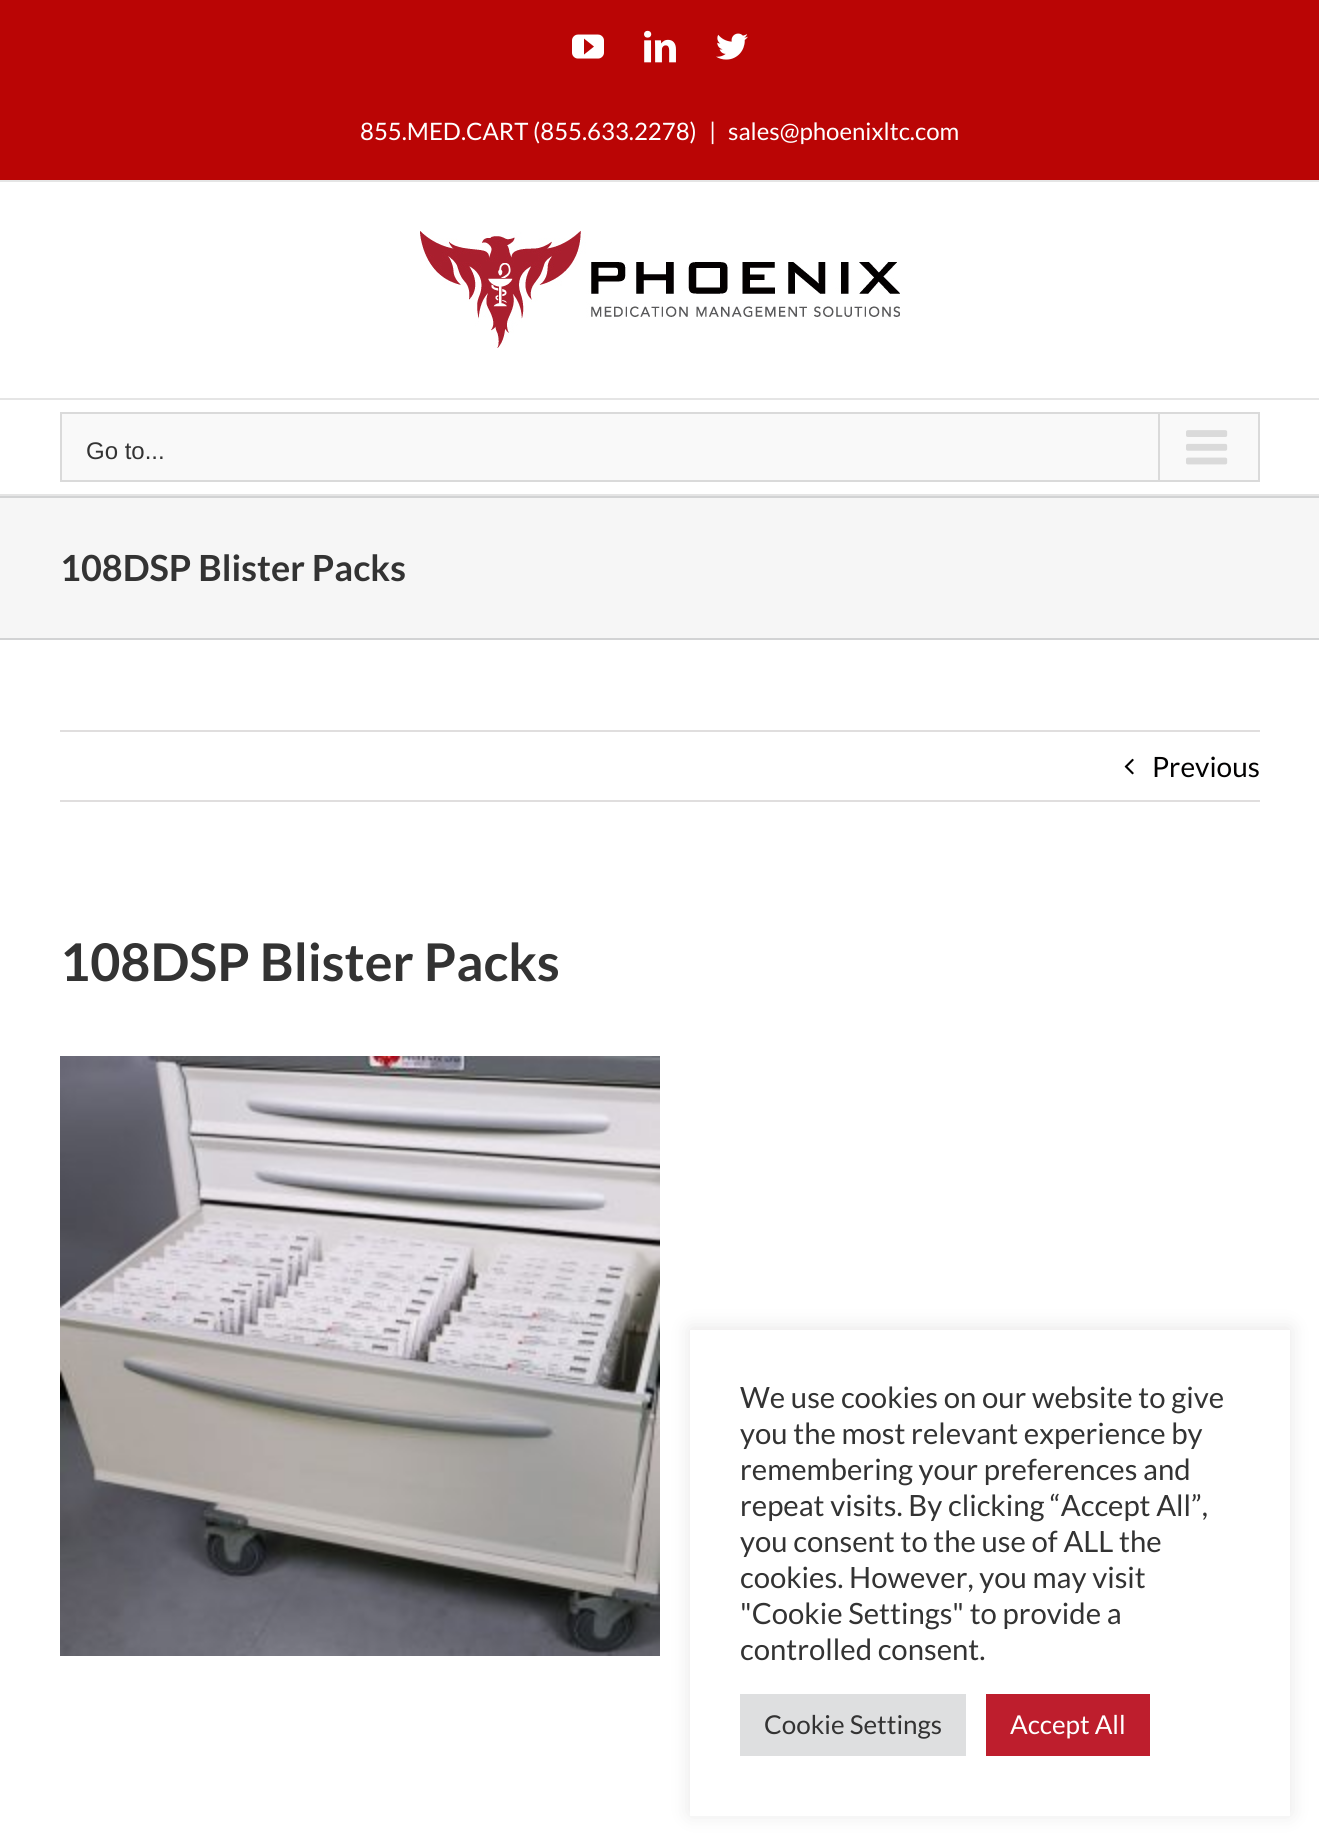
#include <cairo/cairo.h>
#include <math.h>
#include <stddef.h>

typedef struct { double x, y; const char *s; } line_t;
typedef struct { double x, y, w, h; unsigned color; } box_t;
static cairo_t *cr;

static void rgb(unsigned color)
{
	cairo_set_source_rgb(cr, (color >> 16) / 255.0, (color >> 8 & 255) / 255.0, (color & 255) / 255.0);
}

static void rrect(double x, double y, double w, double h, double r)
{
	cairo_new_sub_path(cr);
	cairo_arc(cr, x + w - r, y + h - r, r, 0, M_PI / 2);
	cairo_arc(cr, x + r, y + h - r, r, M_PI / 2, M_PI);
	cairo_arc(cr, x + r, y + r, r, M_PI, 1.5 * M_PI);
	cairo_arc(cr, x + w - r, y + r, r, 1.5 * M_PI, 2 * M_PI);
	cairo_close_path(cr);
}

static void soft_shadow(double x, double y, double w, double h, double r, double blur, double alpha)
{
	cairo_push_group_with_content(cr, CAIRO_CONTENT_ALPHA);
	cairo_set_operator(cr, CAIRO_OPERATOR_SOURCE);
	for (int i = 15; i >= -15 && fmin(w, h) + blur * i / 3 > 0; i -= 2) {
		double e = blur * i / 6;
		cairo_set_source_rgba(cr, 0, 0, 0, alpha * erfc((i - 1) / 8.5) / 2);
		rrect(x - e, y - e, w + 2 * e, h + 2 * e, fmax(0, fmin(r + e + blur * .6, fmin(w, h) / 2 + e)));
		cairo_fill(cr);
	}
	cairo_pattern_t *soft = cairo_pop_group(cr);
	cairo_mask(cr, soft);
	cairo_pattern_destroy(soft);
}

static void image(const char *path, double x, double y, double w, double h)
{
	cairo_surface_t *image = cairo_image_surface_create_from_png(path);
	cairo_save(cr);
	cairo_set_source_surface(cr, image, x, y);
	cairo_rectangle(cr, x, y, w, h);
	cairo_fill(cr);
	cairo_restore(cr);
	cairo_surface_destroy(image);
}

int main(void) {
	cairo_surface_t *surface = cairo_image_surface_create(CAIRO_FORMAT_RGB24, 1319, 1845);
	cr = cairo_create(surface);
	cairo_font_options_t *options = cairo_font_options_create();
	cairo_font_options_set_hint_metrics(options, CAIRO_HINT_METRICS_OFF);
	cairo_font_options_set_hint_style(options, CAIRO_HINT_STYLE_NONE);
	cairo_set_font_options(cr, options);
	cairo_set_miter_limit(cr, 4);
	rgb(0xffffff);
	cairo_paint(cr);
	rgb(0xba0505);
	cairo_rectangle(cr, 0, 0, 1319, 180);
	cairo_fill(cr);
	rgb(0xe5e5e5);
	cairo_rectangle(cr, 0, 180, 1319, 2);
	cairo_fill(cr);
	image("img/1.png", 572, 34, 32, 25);
	image("img/2.png", 644, 30, 32, 33);
	image("img/3.png", 716, 33, 32, 27);
	cairo_rectangle(cr, 0, 398, 1319, 2);
	cairo_fill(cr);
	image("img/4.png", 420, 230, 480, 118);
	cairo_rectangle(cr, 0, 494, 1319, 2);
	cairo_fill(cr);
	rgb(0xf9f9f9);
	cairo_rectangle(cr, 61, 413, 1198, 68);
	cairo_fill_preserve(cr);
	rgb(0xdadada);
	cairo_stroke(cr);
	cairo_rectangle(cr, 1158, 414, 2, 66);
	cairo_fill(cr);
	image("img/5.png", 1186, 430, 42, 35);
	{
		static const box_t items[] = {
			{0, 498, 1319, 140, 0xf6f6f6},
			{0, 496, 1319, 2, 0xd2d3d4},
			{0, 638, 1319, 2, 0xd2d3d4},
			{60, 730, 1200, 2, 0xe0dede},
			{60, 800, 1200, 2, 0xe0dede},
		};
		for (size_t i = 0; i < sizeof items / sizeof *items; i++) {
			rgb(items[i].color);
			cairo_rectangle(cr, items[i].x, items[i].y, items[i].w, items[i].h);
			cairo_fill(cr);
		}
	}
	image("img/6.png", 1124, 758, 10, 17);
	image("img/7.png", 60, 1056, 600, 600);
	cairo_save(cr);
	cairo_set_fill_rule(cr, CAIRO_FILL_RULE_EVEN_ODD);
	cairo_new_path(cr);
	cairo_move_to(cr, 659, 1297);
	cairo_line_to(cr, 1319, 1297);
	cairo_line_to(cr, 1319, 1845);
	cairo_line_to(cr, 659, 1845);
	cairo_close_path(cr);
	cairo_move_to(cr, 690, 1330);
	cairo_line_to(cr, 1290, 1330);
	cairo_line_to(cr, 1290, 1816);
	cairo_line_to(cr, 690, 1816);
	cairo_close_path(cr);
	cairo_clip(cr);
	rgb(0xacabab);
	soft_shadow(690, 1328, 600, 486, 0, 10, 0.3);
	cairo_restore(cr);
	rgb(0xdedfe0);
	cairo_rectangle(cr, 740, 1694, 226, 62);
	cairo_fill(cr);
	rgb(0xbe1e2d);
	cairo_rectangle(cr, 986, 1694, 164, 62);
	cairo_fill(cr);
	cairo_select_font_face(cr, "Lato", CAIRO_FONT_SLANT_NORMAL, CAIRO_FONT_WEIGHT_NORMAL);
	cairo_set_font_size(cr, 24);
	rgb(0xffffff);
	{
		static const line_t items[] = {
			{360, 140, "855.MED.CART (855.633.2278)"},
			{709, 140, "|"},
			{728, 140, "sales@phoenixltc.com"},
		};
		for (size_t i = 0; i < sizeof items / sizeof *items; i++) {
			cairo_move_to(cr, items[i].x, items[i].y);
			cairo_show_text(cr, items[i].s);
		}
	}
	cairo_select_font_face(cr, "Liberation Sans", CAIRO_FONT_SLANT_NORMAL, CAIRO_FONT_WEIGHT_NORMAL);
	rgb(0x333333);
	cairo_move_to(cr, 86, 459);
	cairo_show_text(cr, "Go to...");
	cairo_select_font_face(cr, "Lato", CAIRO_FONT_SLANT_NORMAL, CAIRO_FONT_WEIGHT_BOLD);
	cairo_set_font_size(cr, 36);
	cairo_move_to(cr, 60, 581);
	cairo_show_text(cr, "108DSP Blister Packs");
	cairo_select_font_face(cr, "Lato", CAIRO_FONT_SLANT_NORMAL, CAIRO_FONT_WEIGHT_NORMAL);
	cairo_set_font_size(cr, 28);
	rgb(0x020101);
	cairo_move_to(cr, 1152, 777);
	cairo_show_text(cr, "Previous");
	cairo_select_font_face(cr, "Lato", CAIRO_FONT_SLANT_NORMAL, CAIRO_FONT_WEIGHT_BOLD);
	cairo_set_font_size(cr, 52);
	rgb(0x333333);
	cairo_move_to(cr, 60, 981);
	cairo_show_text(cr, "108DSP Blister Packs");
	cairo_select_font_face(cr, "Lato", CAIRO_FONT_SLANT_NORMAL, CAIRO_FONT_WEIGHT_NORMAL);
	cairo_set_font_size(cr, 29.3);
	{
		static const line_t items[] = {
			{740, 1408, "We use cookies on our website to give"},
			{740, 1444, "you the most relevant experience by"},
			{740, 1480, "remembering your preferences and"},
			{740, 1516, "repeat visits. By clicking “Accept All”,"},
			{740, 1552, "you consent to the use of ALL the"},
			{740, 1588, "cookies. However, you may visit"},
			{740, 1624, "\"Cookie Settings\" to provide a"},
			{740, 1660, "controlled consent."},
		};
		for (size_t i = 0; i < sizeof items / sizeof *items; i++) {
			cairo_move_to(cr, items[i].x, items[i].y);
			cairo_show_text(cr, items[i].s);
		}
	}
	cairo_set_font_size(cr, 26);
	cairo_move_to(cr, 764, 1734);
	cairo_show_text(cr, "Cookie Settings");
	rgb(0xffffff);
	cairo_move_to(cr, 1010, 1734);
	cairo_show_text(cr, "Accept All");
	cairo_surface_write_to_png(surface, "page.png");
	cairo_font_options_destroy(options);
	cairo_destroy(cr);
	cairo_surface_destroy(surface);
	return 0;
}
